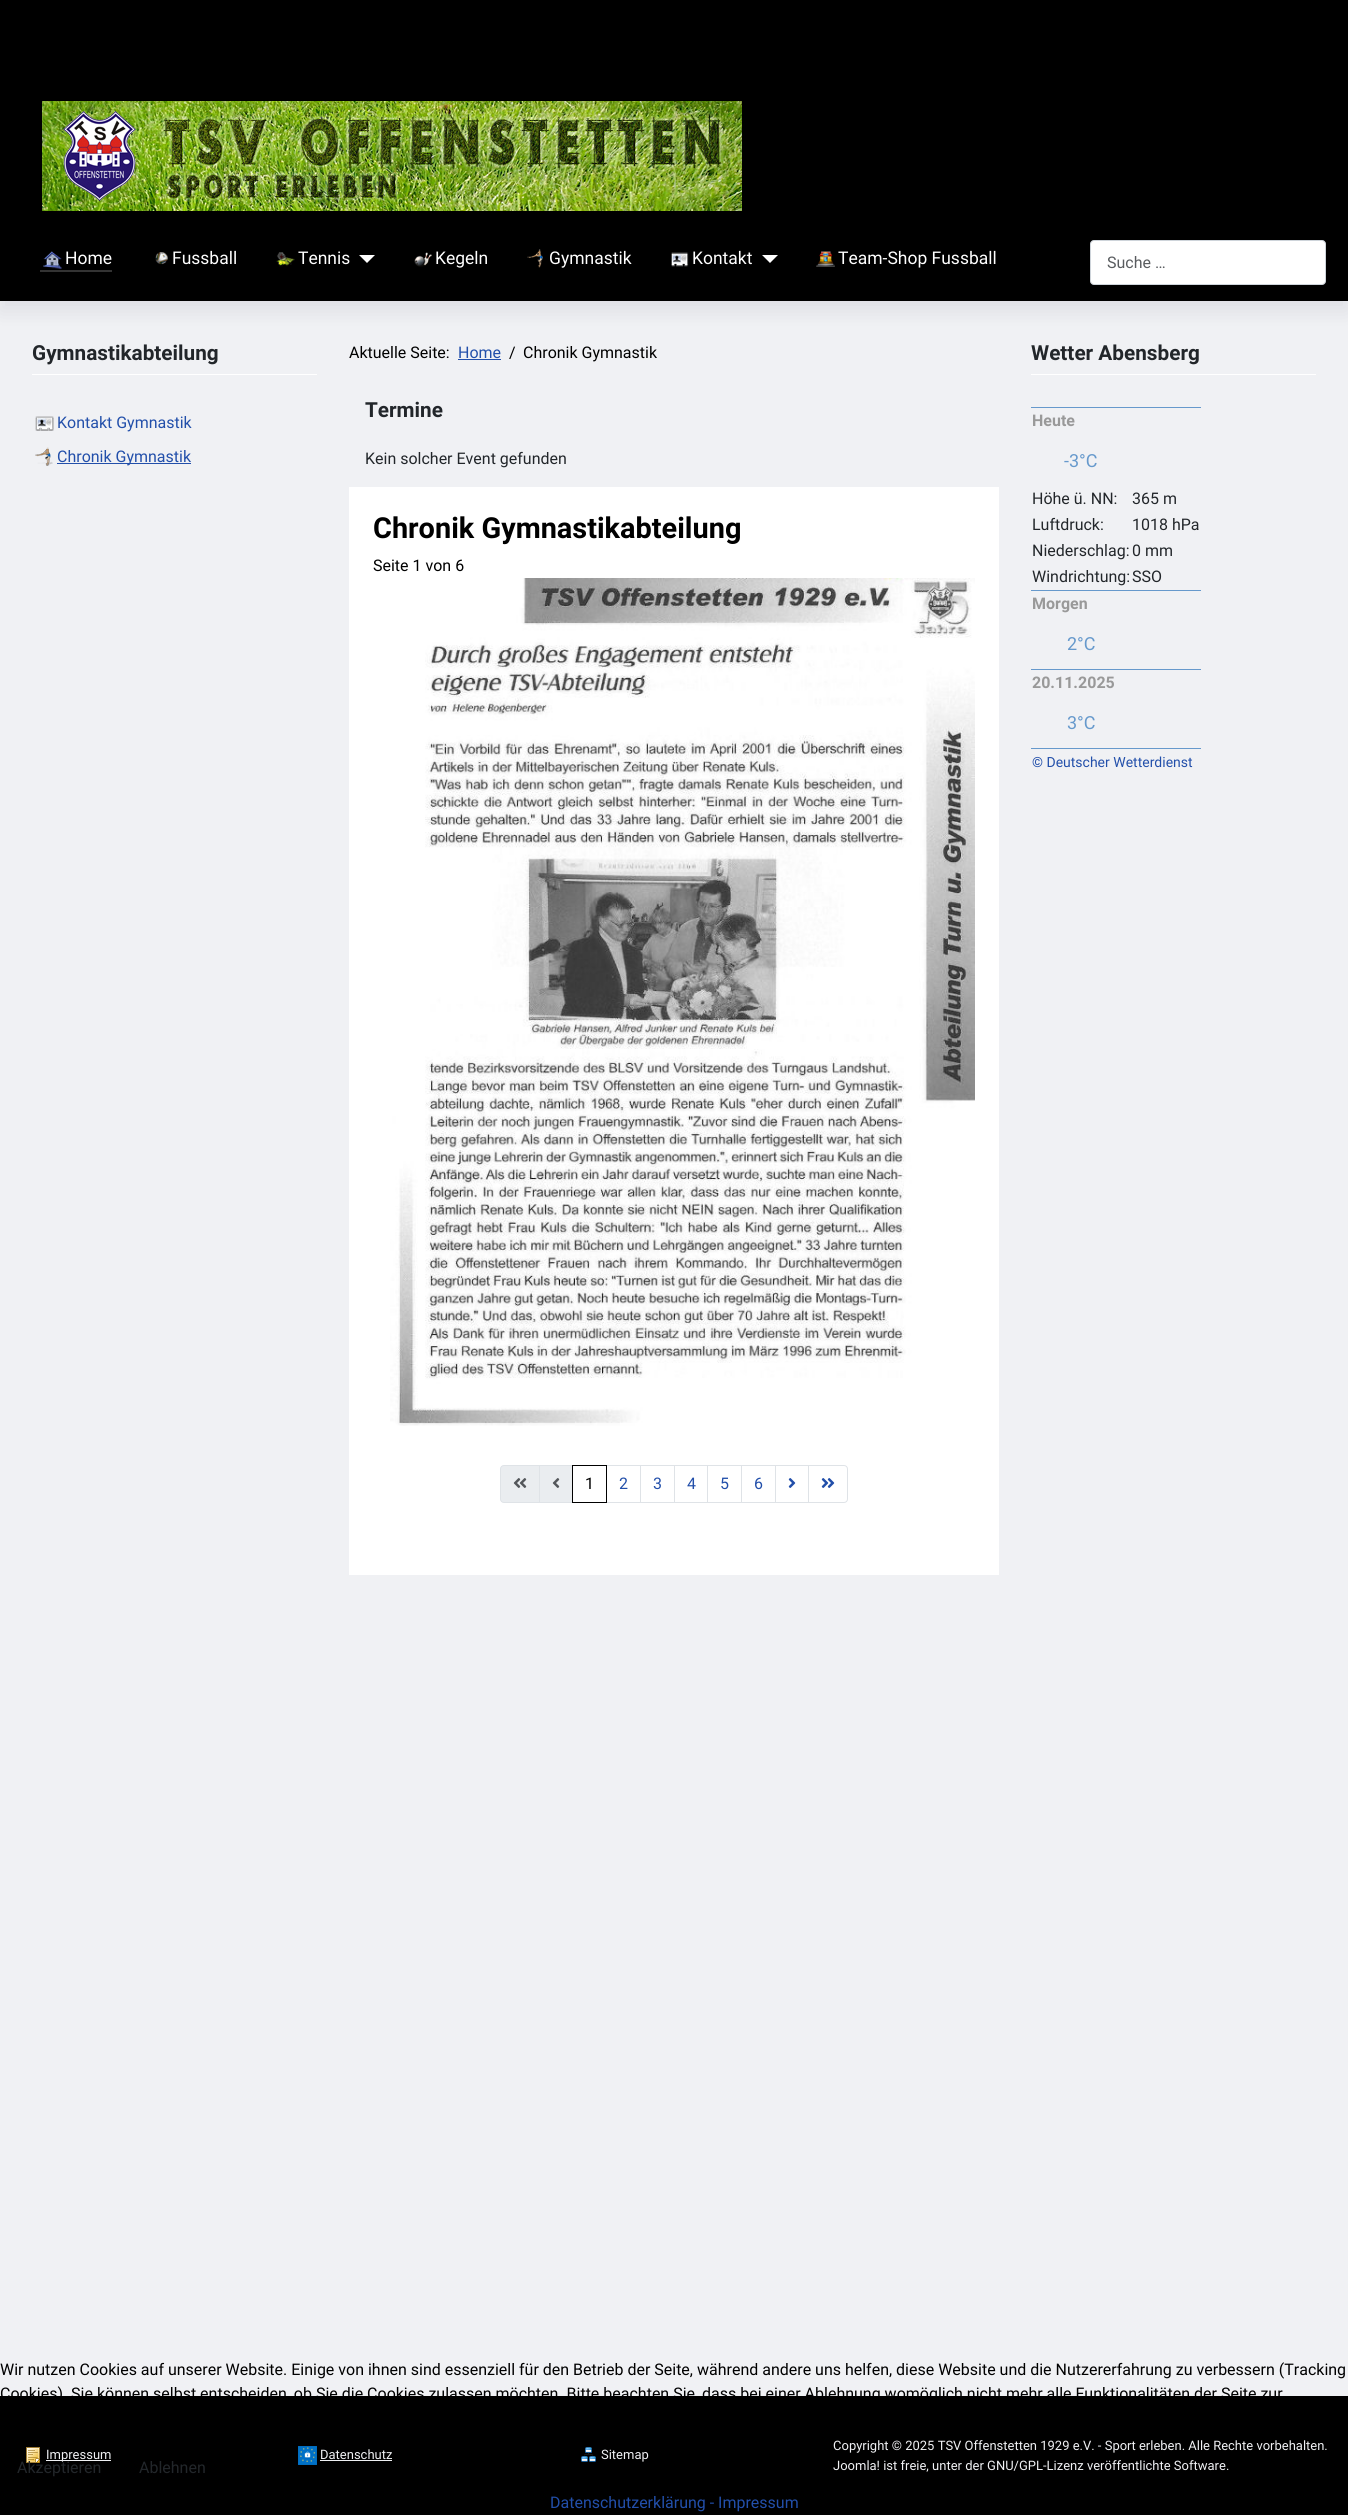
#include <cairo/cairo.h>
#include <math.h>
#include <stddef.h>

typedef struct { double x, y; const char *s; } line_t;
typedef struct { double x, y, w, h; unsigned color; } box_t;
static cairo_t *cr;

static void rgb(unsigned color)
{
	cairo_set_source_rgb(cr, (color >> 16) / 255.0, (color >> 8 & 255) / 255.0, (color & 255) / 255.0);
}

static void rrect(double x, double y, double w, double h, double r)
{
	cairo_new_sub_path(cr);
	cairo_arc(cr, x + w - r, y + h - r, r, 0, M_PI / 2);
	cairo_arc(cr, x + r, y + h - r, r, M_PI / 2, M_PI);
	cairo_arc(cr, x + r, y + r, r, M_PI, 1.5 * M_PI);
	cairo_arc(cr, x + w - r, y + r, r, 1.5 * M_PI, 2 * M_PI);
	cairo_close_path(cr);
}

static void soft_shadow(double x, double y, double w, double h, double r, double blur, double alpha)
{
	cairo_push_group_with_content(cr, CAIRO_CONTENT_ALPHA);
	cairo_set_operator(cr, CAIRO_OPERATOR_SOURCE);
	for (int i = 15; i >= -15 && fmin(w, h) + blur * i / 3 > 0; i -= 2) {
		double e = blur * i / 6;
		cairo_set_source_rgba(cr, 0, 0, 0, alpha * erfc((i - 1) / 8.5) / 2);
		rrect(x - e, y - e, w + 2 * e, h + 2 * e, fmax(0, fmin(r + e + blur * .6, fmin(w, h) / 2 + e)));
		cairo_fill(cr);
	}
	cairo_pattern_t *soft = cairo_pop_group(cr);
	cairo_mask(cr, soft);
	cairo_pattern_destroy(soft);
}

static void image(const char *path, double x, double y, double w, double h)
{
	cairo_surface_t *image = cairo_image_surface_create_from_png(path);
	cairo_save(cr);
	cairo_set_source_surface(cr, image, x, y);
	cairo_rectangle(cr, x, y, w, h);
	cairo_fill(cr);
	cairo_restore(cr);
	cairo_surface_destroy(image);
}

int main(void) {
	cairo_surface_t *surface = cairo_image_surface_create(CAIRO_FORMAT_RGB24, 1348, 2515);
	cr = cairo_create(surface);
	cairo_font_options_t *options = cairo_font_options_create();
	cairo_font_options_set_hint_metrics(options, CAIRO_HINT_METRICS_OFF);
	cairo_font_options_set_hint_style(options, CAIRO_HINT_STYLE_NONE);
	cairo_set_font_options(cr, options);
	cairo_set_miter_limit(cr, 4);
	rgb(0xf0f1f4);
	cairo_paint(cr);
	rgb(0x08002a);
	soft_shadow(0, 10, 1348, 301, 0, 10, 0.08);
	rgb(0x000000);
	cairo_rectangle(cr, 0, 0, 1348, 301);
	cairo_fill(cr);
	image("img/1.png", 42, 101, 700, 110);
	image("img/2.png", 43, 251, 19, 18);
	rgb(0x333333);
	cairo_rectangle(cr, 40, 270, 72, 2);
	cairo_fill(cr);
	image("img/3.png", 155, 252, 13, 13);
	image("img/4.png", 276, 252, 19, 15);
	rgb(0xffffff);
	cairo_new_path(cr);
	cairo_move_to(cr, 359, 255);
	cairo_line_to(cr, 375, 255);
	cairo_line_to(cr, 367, 263);
	cairo_close_path(cr);
	cairo_fill(cr);
	image("img/5.png", 414, 252, 18, 15);
	image("img/6.png", 527, 249, 16, 19);
	image("img/7.png", 671, 252, 18, 15);
	cairo_new_path(cr);
	cairo_move_to(cr, 762, 255);
	cairo_line_to(cr, 778, 255);
	cairo_line_to(cr, 770, 263);
	cairo_close_path(cr);
	cairo_fill(cr);
	image("img/8.png", 816, 251, 19, 16);
	rrect(1090.5, 240.5, 235, 44, 3.5);
	cairo_fill_preserve(cr);
	rgb(0xced4da);
	cairo_set_line_width(cr, 1);
	cairo_stroke(cr);
	rgb(0xffffff);
	cairo_rectangle(cr, 32, 374, 285, 1);
	cairo_fill(cr);
	image("img/9.png", 35, 416, 19, 15);
	image("img/10.png", 35, 447, 18, 19);
	{
		static const box_t items[] = {
			{57, 463, 134, 1, 0x224faa},
			{458, 359, 43, 1, 0x224faa},
			{349, 487, 650, 1088, 0xffffff},
		};
		for (size_t i = 0; i < sizeof items / sizeof *items; i++) {
			rgb(items[i].color);
			cairo_rectangle(cr, items[i].x, items[i].y, items[i].w, items[i].h);
			cairo_fill(cr);
		}
	}
	image("img/11.png", 390, 578, 585, 848);
	rgb(0xeaedf0);
	cairo_new_path(cr);
	cairo_move_to(cr, 504, 1465.5);
	cairo_line_to(cr, 539.5, 1465.5);
	cairo_line_to(cr, 539.5, 1502.5);
	cairo_line_to(cr, 504, 1502.5);
	cairo_curve_to(cr, 502, 1502.5, 500.5, 1501, 500.5, 1499);
	cairo_line_to(cr, 500.5, 1469);
	cairo_curve_to(cr, 500.5, 1467, 502, 1465.5, 504, 1465.5);
	cairo_close_path(cr);
	cairo_fill_preserve(cr);
	rgb(0xdfe3e7);
	cairo_stroke(cr);
	image("img/12.png", 513, 1478, 14, 10);
	rgb(0xeaedf0);
	cairo_rectangle(cr, 539.5, 1465.5, 33, 37);
	cairo_fill_preserve(cr);
	rgb(0xdfe3e7);
	cairo_stroke(cr);
	image("img/13.png", 552, 1478, 8, 10);
	cairo_rectangle(cr, 606.5, 1465.5, 34, 37);
	cairo_stroke(cr);
	cairo_rectangle(cr, 572.5, 1465.5, 34, 37);
	rgb(0x000000);
	cairo_stroke(cr);
	cairo_rectangle(cr, 640.5, 1465.5, 34, 37);
	rgb(0xdfe3e7);
	cairo_stroke(cr);
	cairo_rectangle(cr, 674.5, 1465.5, 33, 37);
	cairo_stroke(cr);
	cairo_rectangle(cr, 707.5, 1465.5, 34, 37);
	cairo_stroke(cr);
	cairo_rectangle(cr, 741.5, 1465.5, 34, 37);
	cairo_stroke(cr);
	cairo_rectangle(cr, 775.5, 1465.5, 33, 37);
	cairo_stroke(cr);
	image("img/14.png", 788, 1478, 8, 10);
	rgb(0xffffff);
	cairo_new_path(cr);
	cairo_move_to(cr, 808.5, 1465.5);
	cairo_line_to(cr, 844, 1465.5);
	cairo_curve_to(cr, 846, 1465.5, 847.5, 1467, 847.5, 1469);
	cairo_line_to(cr, 847.5, 1499);
	cairo_curve_to(cr, 847.5, 1501, 846, 1502.5, 844, 1502.5);
	cairo_line_to(cr, 808.5, 1502.5);
	cairo_close_path(cr);
	cairo_fill_preserve(cr);
	rgb(0xdfe3e7);
	cairo_stroke(cr);
	image("img/15.png", 821, 1478, 14, 10);
	{
		static const box_t items[] = {
			{1031, 374, 285, 1, 0xffffff},
			{1031, 407, 170, 1, 0x6699cc},
			{1031, 590, 170, 1, 0x6699cc},
			{1031, 669, 170, 1, 0x6699cc},
			{1031, 748, 170, 1, 0x6699cc},
			{0, 2396, 1348, 119, 0x000000},
		};
		for (size_t i = 0; i < sizeof items / sizeof *items; i++) {
			rgb(items[i].color);
			cairo_rectangle(cr, items[i].x, items[i].y, items[i].w, items[i].h);
			cairo_fill(cr);
		}
	}
	image("img/16.png", 26, 2447, 14, 16);
	rgb(0xf0f1f4);
	cairo_rectangle(cr, 46, 2460, 65, 1);
	cairo_fill(cr);
	image("img/17.png", 298, 2446, 19, 19);
	cairo_rectangle(cr, 320, 2460, 72, 1);
	cairo_fill(cr);
	image("img/18.png", 581, 2447, 15, 15);
	cairo_select_font_face(cr, "Roboto", CAIRO_FONT_SLANT_NORMAL, CAIRO_FONT_WEIGHT_NORMAL);
	cairo_set_font_size(cr, 17.5);
	rgb(0xffffff);
	{
		static const line_t items[] = {
			{65, 264, "Home"},
			{172, 264, "Fussball"},
			{298, 264, "Tennis"},
			{435, 264, "Kegeln"},
			{549, 264, "Gymnastik"},
			{692, 264, "Kontakt"},
			{838, 264, "Team-Shop Fussball"},
		};
		for (size_t i = 0; i < sizeof items / sizeof *items; i++) {
			cairo_move_to(cr, items[i].x, items[i].y);
			cairo_show_text(cr, items[i].s);
		}
	}
	cairo_set_font_size(cr, 16);
	rgb(0x595c5f);
	cairo_move_to(cr, 1107, 268);
	cairo_show_text(cr, "Suche …");
	cairo_select_font_face(cr, "Roboto", CAIRO_FONT_SLANT_NORMAL, CAIRO_FONT_WEIGHT_BOLD);
	cairo_set_font_size(cr, 20.75);
	rgb(0x22262a);
	cairo_move_to(cr, 32, 360);
	cairo_show_text(cr, "Gymnastikabteilung");
	cairo_select_font_face(cr, "Roboto", CAIRO_FONT_SLANT_NORMAL, CAIRO_FONT_WEIGHT_NORMAL);
	cairo_set_font_size(cr, 16);
	rgb(0x224faa);
	cairo_move_to(cr, 57, 428);
	cairo_show_text(cr, "Kontakt Gymnastik");
	cairo_move_to(cr, 57, 462);
	cairo_show_text(cr, "Chronik Gymnastik");
	rgb(0x000000);
	cairo_move_to(cr, 349, 358);
	cairo_show_text(cr, "Aktuelle Seite:");
	rgb(0x224faa);
	cairo_move_to(cr, 458, 358);
	cairo_show_text(cr, "Home");
	rgb(0x000000);
	cairo_move_to(cr, 509, 358);
	cairo_show_text(cr, "/");
	cairo_move_to(cr, 523, 358);
	cairo_show_text(cr, "Chronik Gymnastik");
	cairo_select_font_face(cr, "Roboto", CAIRO_FONT_SLANT_NORMAL, CAIRO_FONT_WEIGHT_BOLD);
	cairo_set_font_size(cr, 20.75);
	rgb(0x22262a);
	cairo_move_to(cr, 365, 417);
	cairo_show_text(cr, "Termine");
	cairo_select_font_face(cr, "Roboto", CAIRO_FONT_SLANT_NORMAL, CAIRO_FONT_WEIGHT_NORMAL);
	cairo_set_font_size(cr, 16);
	cairo_move_to(cr, 365, 464);
	cairo_show_text(cr, "Kein solcher Event gefunden");
	cairo_select_font_face(cr, "Roboto", CAIRO_FONT_SLANT_NORMAL, CAIRO_FONT_WEIGHT_BOLD);
	cairo_set_font_size(cr, 28.9);
	rgb(0x000000);
	cairo_move_to(cr, 373, 538);
	cairo_show_text(cr, "Chronik Gymnastikabteilung");
	cairo_select_font_face(cr, "Roboto", CAIRO_FONT_SLANT_NORMAL, CAIRO_FONT_WEIGHT_NORMAL);
	cairo_set_font_size(cr, 16);
	cairo_move_to(cr, 373, 571);
	cairo_show_text(cr, "Seite 1 von 6");
	cairo_move_to(cr, 585, 1489);
	cairo_show_text(cr, "1");
	rgb(0x224faa);
	{
		static const line_t items[] = {
			{619, 1489, "2"},
			{653, 1489, "3"},
			{687, 1489, "4"},
			{720, 1489, "5"},
			{754, 1489, "6"},
		};
		for (size_t i = 0; i < sizeof items / sizeof *items; i++) {
			cairo_move_to(cr, items[i].x, items[i].y);
			cairo_show_text(cr, items[i].s);
		}
	}
	cairo_select_font_face(cr, "Roboto", CAIRO_FONT_SLANT_NORMAL, CAIRO_FONT_WEIGHT_BOLD);
	cairo_set_font_size(cr, 20.75);
	rgb(0x22262a);
	cairo_move_to(cr, 1031, 360);
	cairo_show_text(cr, "Wetter Abensberg");
	cairo_set_font_size(cr, 16);
	rgb(0x999999);
	cairo_move_to(cr, 1032, 426);
	cairo_show_text(cr, "Heute");
	cairo_select_font_face(cr, "Roboto", CAIRO_FONT_SLANT_NORMAL, CAIRO_FONT_WEIGHT_NORMAL);
	cairo_set_font_size(cr, 18);
	rgb(0x6699cc);
	cairo_move_to(cr, 1064, 467);
	cairo_show_text(cr, "-3°C");
	cairo_set_font_size(cr, 16);
	rgb(0x22262a);
	{
		static const line_t items[] = {
			{1032, 504, "Höhe ü. NN:"},
			{1132, 504, "365 m"},
			{1032, 530, "Luftdruck:"},
			{1132, 530, "1018 hPa"},
			{1032, 556, "Niederschlag:"},
			{1132, 556, "0 mm"},
			{1032, 582, "Windrichtung:"},
			{1132, 582, "SSO"},
		};
		for (size_t i = 0; i < sizeof items / sizeof *items; i++) {
			cairo_move_to(cr, items[i].x, items[i].y);
			cairo_show_text(cr, items[i].s);
		}
	}
	cairo_select_font_face(cr, "Roboto", CAIRO_FONT_SLANT_NORMAL, CAIRO_FONT_WEIGHT_BOLD);
	rgb(0x999999);
	cairo_move_to(cr, 1032, 609);
	cairo_show_text(cr, "Morgen");
	cairo_select_font_face(cr, "Roboto", CAIRO_FONT_SLANT_NORMAL, CAIRO_FONT_WEIGHT_NORMAL);
	cairo_set_font_size(cr, 18);
	rgb(0x6699cc);
	cairo_move_to(cr, 1067, 650);
	cairo_show_text(cr, "2°C");
	cairo_select_font_face(cr, "Roboto", CAIRO_FONT_SLANT_NORMAL, CAIRO_FONT_WEIGHT_BOLD);
	cairo_set_font_size(cr, 16);
	rgb(0x999999);
	cairo_move_to(cr, 1032, 688);
	cairo_show_text(cr, "20.11.2025");
	cairo_select_font_face(cr, "Roboto", CAIRO_FONT_SLANT_NORMAL, CAIRO_FONT_WEIGHT_NORMAL);
	cairo_set_font_size(cr, 18);
	rgb(0x6699cc);
	cairo_move_to(cr, 1067, 729);
	cairo_show_text(cr, "3°C");
	cairo_set_font_size(cr, 14);
	rgb(0x224faa);
	cairo_move_to(cr, 1032, 767);
	cairo_show_text(cr, "© Deutscher Wetterdienst");
	cairo_set_font_size(cr, 16);
	rgb(0x000000);
	cairo_move_to(cr, 0, 2375);
	cairo_show_text(cr, "Wir nutzen Cookies auf unserer Website. Einige von ihnen sind essenziell für den Betrieb der Seite, während andere uns helfen, diese Website und die Nutzererfahrung zu verbessern (Tracking");
	cairo_move_to(cr, 0, 2399);
	cairo_show_text(cr, "Cookies). Sie können selbst entscheiden, ob Sie die Cookies zulassen möchten. Bitte beachten Sie, dass bei einer Ablehnung womöglich nicht mehr alle Funktionalitäten der Seite zur");
	rgb(0x22262a);
	cairo_move_to(cr, 17, 2473);
	cairo_show_text(cr, "Akzeptieren");
	cairo_move_to(cr, 139, 2473);
	cairo_show_text(cr, "Ablehnen");
	rgb(0x224faa);
	cairo_move_to(cr, 550, 2508);
	cairo_show_text(cr, "Datenschutzerklärung - Impressum");
	cairo_set_font_size(cr, 13);
	rgb(0xf0f1f4);
	{
		static const line_t items[] = {
			{46, 2459, "Impressum"},
			{320, 2459, "Datenschutz"},
			{601, 2459, "Sitemap"},
			{833, 2450, "Copyright © 2025 TSV Offenstetten 1929 e.V. - Sport erleben. Alle Rechte vorbehalten."},
			{833, 2470, "Joomla! ist freie, unter der GNU/GPL-Lizenz veröffentlichte Software."},
		};
		for (size_t i = 0; i < sizeof items / sizeof *items; i++) {
			cairo_move_to(cr, items[i].x, items[i].y);
			cairo_show_text(cr, items[i].s);
		}
	}
	cairo_surface_write_to_png(surface, "page.png");
	cairo_font_options_destroy(options);
	cairo_destroy(cr);
	cairo_surface_destroy(surface);
	return 0;
}
